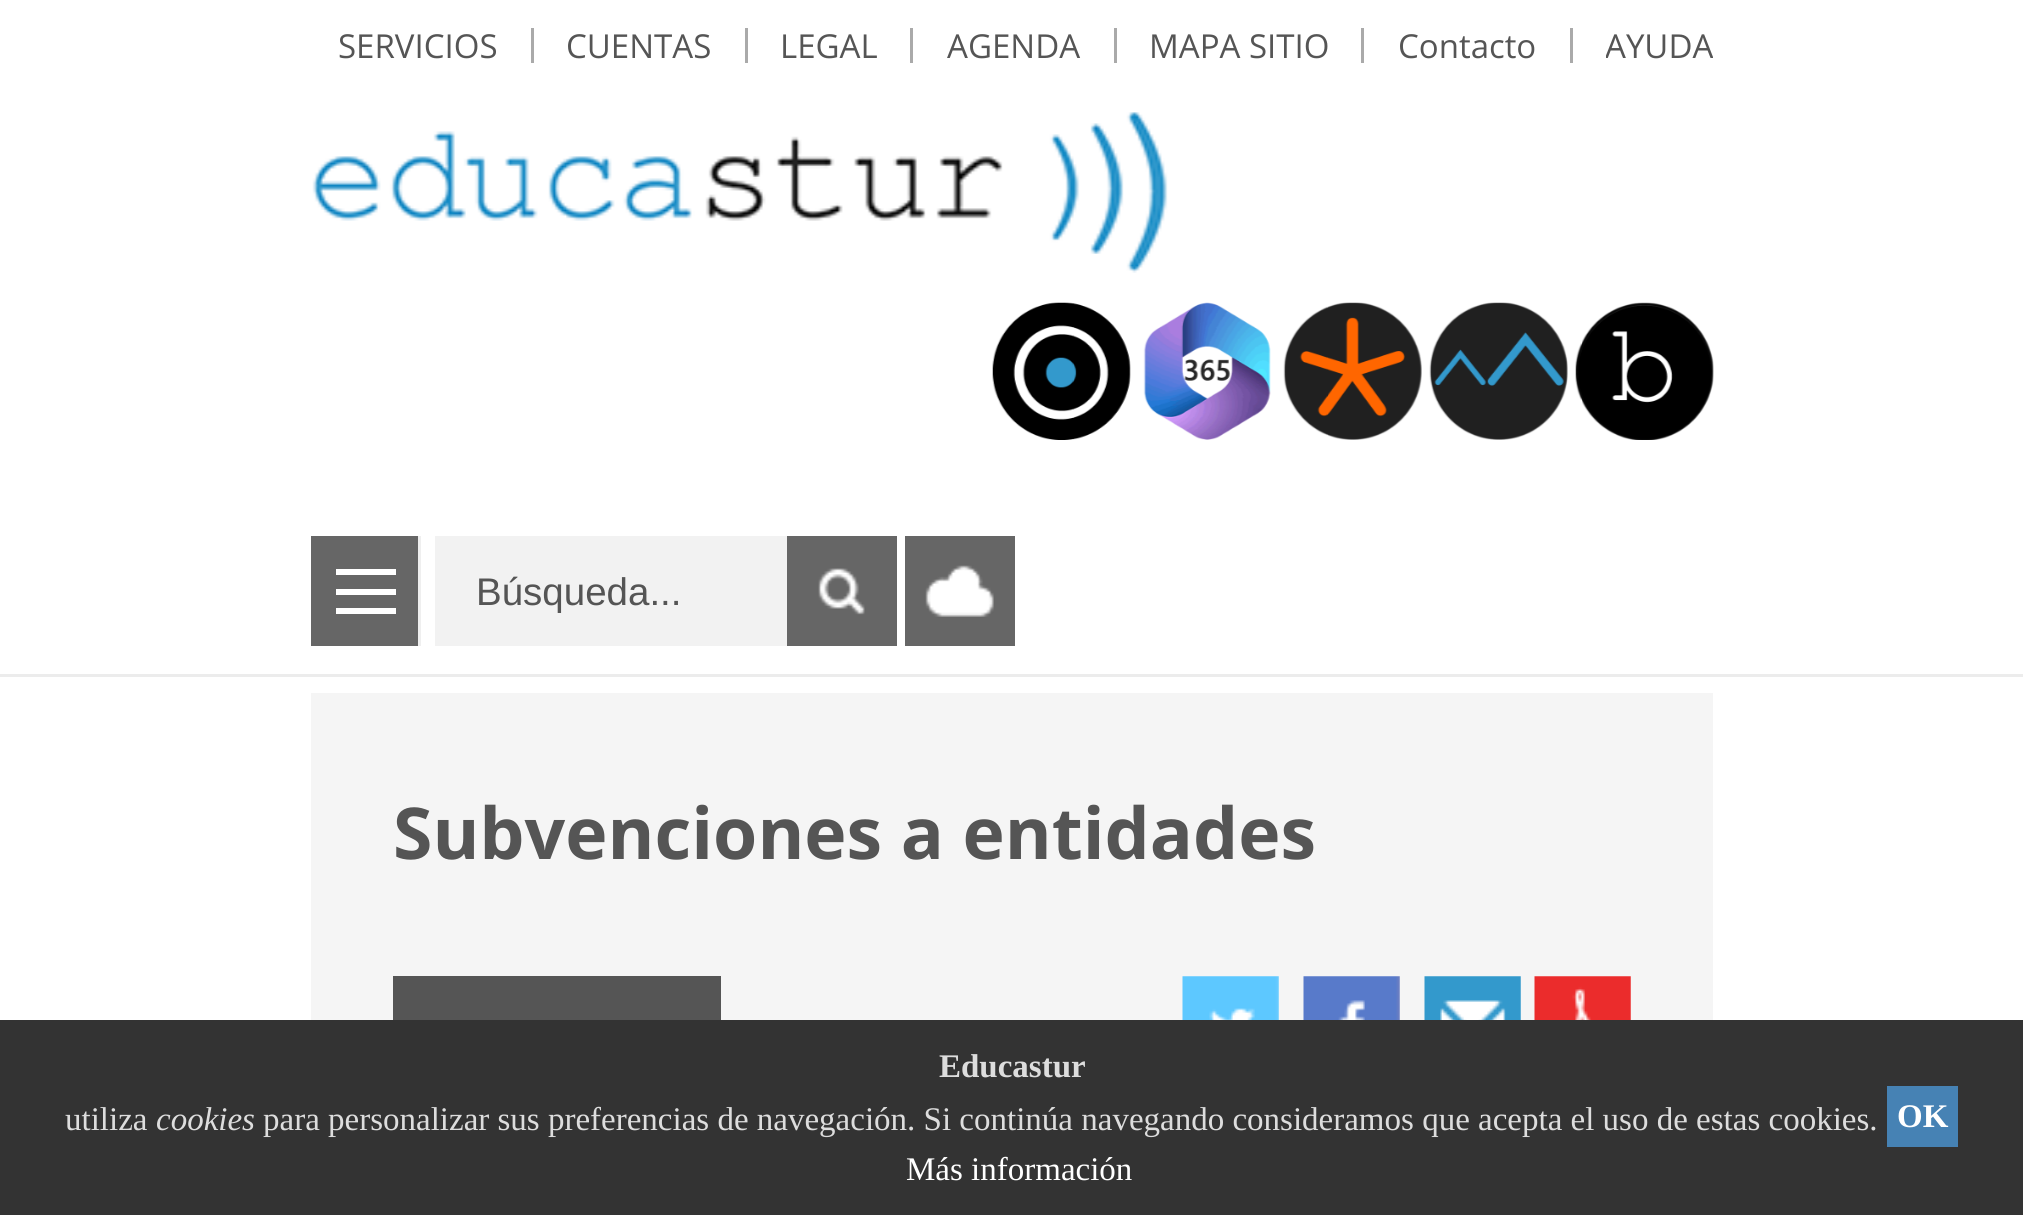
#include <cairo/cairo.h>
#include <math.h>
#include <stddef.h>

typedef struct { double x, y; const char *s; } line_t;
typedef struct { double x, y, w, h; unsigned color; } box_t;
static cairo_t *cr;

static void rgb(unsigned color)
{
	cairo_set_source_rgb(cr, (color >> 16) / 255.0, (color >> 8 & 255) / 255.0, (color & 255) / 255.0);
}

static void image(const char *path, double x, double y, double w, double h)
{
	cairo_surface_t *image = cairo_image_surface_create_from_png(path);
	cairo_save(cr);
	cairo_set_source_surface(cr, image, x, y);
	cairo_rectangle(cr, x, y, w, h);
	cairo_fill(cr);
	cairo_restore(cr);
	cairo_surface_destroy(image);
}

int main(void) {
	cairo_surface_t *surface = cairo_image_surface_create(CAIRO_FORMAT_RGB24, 2023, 1215);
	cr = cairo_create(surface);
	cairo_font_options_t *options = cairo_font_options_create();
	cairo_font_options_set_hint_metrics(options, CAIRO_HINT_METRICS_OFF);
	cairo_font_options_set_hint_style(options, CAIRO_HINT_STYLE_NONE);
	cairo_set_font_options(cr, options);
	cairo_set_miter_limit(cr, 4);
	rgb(0xffffff);
	cairo_paint(cr);
	{
		static const box_t items[] = {
			{0, 674, 2023, 3, 0xececec},
			{531, 28, 3, 35, 0xaaaaaa},
			{745, 28, 3, 35, 0xaaaaaa},
			{910, 28, 3, 35, 0xaaaaaa},
			{1114, 28, 3, 35, 0xaaaaaa},
			{1361, 28, 3, 35, 0xaaaaaa},
			{1570, 28, 3, 35, 0xaaaaaa},
		};
		for (size_t i = 0; i < sizeof items / sizeof *items; i++) {
			rgb(items[i].color);
			cairo_rectangle(cr, items[i].x, items[i].y, items[i].w, items[i].h);
			cairo_fill(cr);
		}
	}
	image("img/1.png", 312, 112, 856, 161);
	image("img/2.png", 992, 302, 139, 138);
	image("img/3.png", 1143, 302, 128, 138);
	image("img/4.png", 1283, 302, 139, 138);
	image("img/5.png", 1429, 302, 139, 138);
	image("img/6.png", 1575, 302, 139, 138);
	{
		static const box_t items[] = {
			{311, 536, 107, 110, 0x666666},
			{418, 536, 3, 110, 0xefefef},
			{336, 569, 60, 6, 0xffffff},
			{336, 589, 60, 6, 0xffffff},
			{336, 608, 60, 6, 0xffffff},
			{435, 536, 352, 110, 0xf2f2f2},
			{787, 536, 110, 110, 0x666666},
		};
		for (size_t i = 0; i < sizeof items / sizeof *items; i++) {
			rgb(items[i].color);
			cairo_rectangle(cr, items[i].x, items[i].y, items[i].w, items[i].h);
			cairo_fill(cr);
		}
	}
	image("img/7.png", 818, 568, 47, 47);
	cairo_rectangle(cr, 905, 536, 110, 110);
	cairo_fill(cr);
	image("img/8.png", 925, 565, 69, 52);
	rgb(0xf5f5f5);
	cairo_rectangle(cr, 311, 693, 1402, 327);
	cairo_fill(cr);
	rgb(0x555555);
	cairo_rectangle(cr, 393, 976, 328, 44);
	cairo_fill(cr);
	image("img/9.png", 1182, 976, 97, 44);
	image("img/10.png", 1303, 976, 97, 44);
	image("img/11.png", 1424, 976, 97, 44);
	image("img/12.png", 1534, 976, 97, 44);
	rgb(0x333333);
	cairo_rectangle(cr, 0, 1020, 2023, 195);
	cairo_fill(cr);
	rgb(0x4682b4);
	cairo_rectangle(cr, 1887, 1086, 71, 61);
	cairo_fill(cr);
	cairo_select_font_face(cr, "Open Sans", CAIRO_FONT_SLANT_NORMAL, CAIRO_FONT_WEIGHT_NORMAL);
	cairo_set_font_size(cr, 33);
	rgb(0x555555);
	cairo_move_to(cr, 338, 58);
	cairo_show_text(cr, "SERVICIOS");
	cairo_move_to(cr, 566, 58);
	cairo_show_text(cr, "CUENTAS");
	cairo_save(cr);
	cairo_rectangle(cr, 781, 28, 96, 35);
	cairo_clip(cr);
	cairo_move_to(cr, 780, 58);
	cairo_show_text(cr, "LEGAL");
	cairo_restore(cr);
	{
		static const line_t items[] = {
			{947, 58, "AGENDA"},
			{1149, 58, "MAPA SITIO"},
			{1398, 58, "Contacto"},
		};
		for (size_t i = 0; i < sizeof items / sizeof *items; i++) {
			cairo_move_to(cr, items[i].x, items[i].y);
			cairo_show_text(cr, items[i].s);
		}
	}
	cairo_save(cr);
	cairo_rectangle(cr, 1606, 28, 107, 35);
	cairo_clip(cr);
	cairo_move_to(cr, 1605, 58);
	cairo_show_text(cr, "AYUDA");
	cairo_restore(cr);
	cairo_select_font_face(cr, "Liberation Sans", CAIRO_FONT_SLANT_NORMAL, CAIRO_FONT_WEIGHT_NORMAL);
	cairo_set_font_size(cr, 38.5);
	cairo_move_to(cr, 476, 605);
	cairo_show_text(cr, "Búsqueda...");
	cairo_select_font_face(cr, "Open Sans", CAIRO_FONT_SLANT_NORMAL, CAIRO_FONT_WEIGHT_BOLD);
	cairo_set_font_size(cr, 71.5);
	cairo_move_to(cr, 393, 859);
	cairo_show_text(cr, "Subvenciones a entidades");
	cairo_select_font_face(cr, "Liberation Serif", CAIRO_FONT_SLANT_NORMAL, CAIRO_FONT_WEIGHT_BOLD);
	cairo_set_font_size(cr, 33);
	rgb(0xdddddd);
	cairo_move_to(cr, 939, 1077);
	cairo_show_text(cr, "Educastur");
	cairo_select_font_face(cr, "Liberation Serif", CAIRO_FONT_SLANT_NORMAL, CAIRO_FONT_WEIGHT_NORMAL);
	cairo_move_to(cr, 65, 1130);
	cairo_show_text(cr, "utiliza");
	cairo_select_font_face(cr, "Liberation Serif", CAIRO_FONT_SLANT_ITALIC, CAIRO_FONT_WEIGHT_NORMAL);
	cairo_move_to(cr, 156, 1130);
	cairo_show_text(cr, "cookies");
	cairo_select_font_face(cr, "Liberation Serif", CAIRO_FONT_SLANT_NORMAL, CAIRO_FONT_WEIGHT_NORMAL);
	cairo_move_to(cr, 263, 1130);
	cairo_show_text(cr, "para personalizar sus preferencias de navegación. Si continúa navegando consideramos que acepta el uso de estas cookies.");
	cairo_select_font_face(cr, "Liberation Serif", CAIRO_FONT_SLANT_NORMAL, CAIRO_FONT_WEIGHT_BOLD);
	rgb(0xffffff);
	cairo_move_to(cr, 1897, 1127);
	cairo_show_text(cr, "OK");
	cairo_select_font_face(cr, "Liberation Serif", CAIRO_FONT_SLANT_NORMAL, CAIRO_FONT_WEIGHT_NORMAL);
	cairo_move_to(cr, 906, 1180);
	cairo_show_text(cr, "Más información");
	cairo_surface_write_to_png(surface, "page.png");
	cairo_font_options_destroy(options);
	cairo_destroy(cr);
	cairo_surface_destroy(surface);
	return 0;
}
